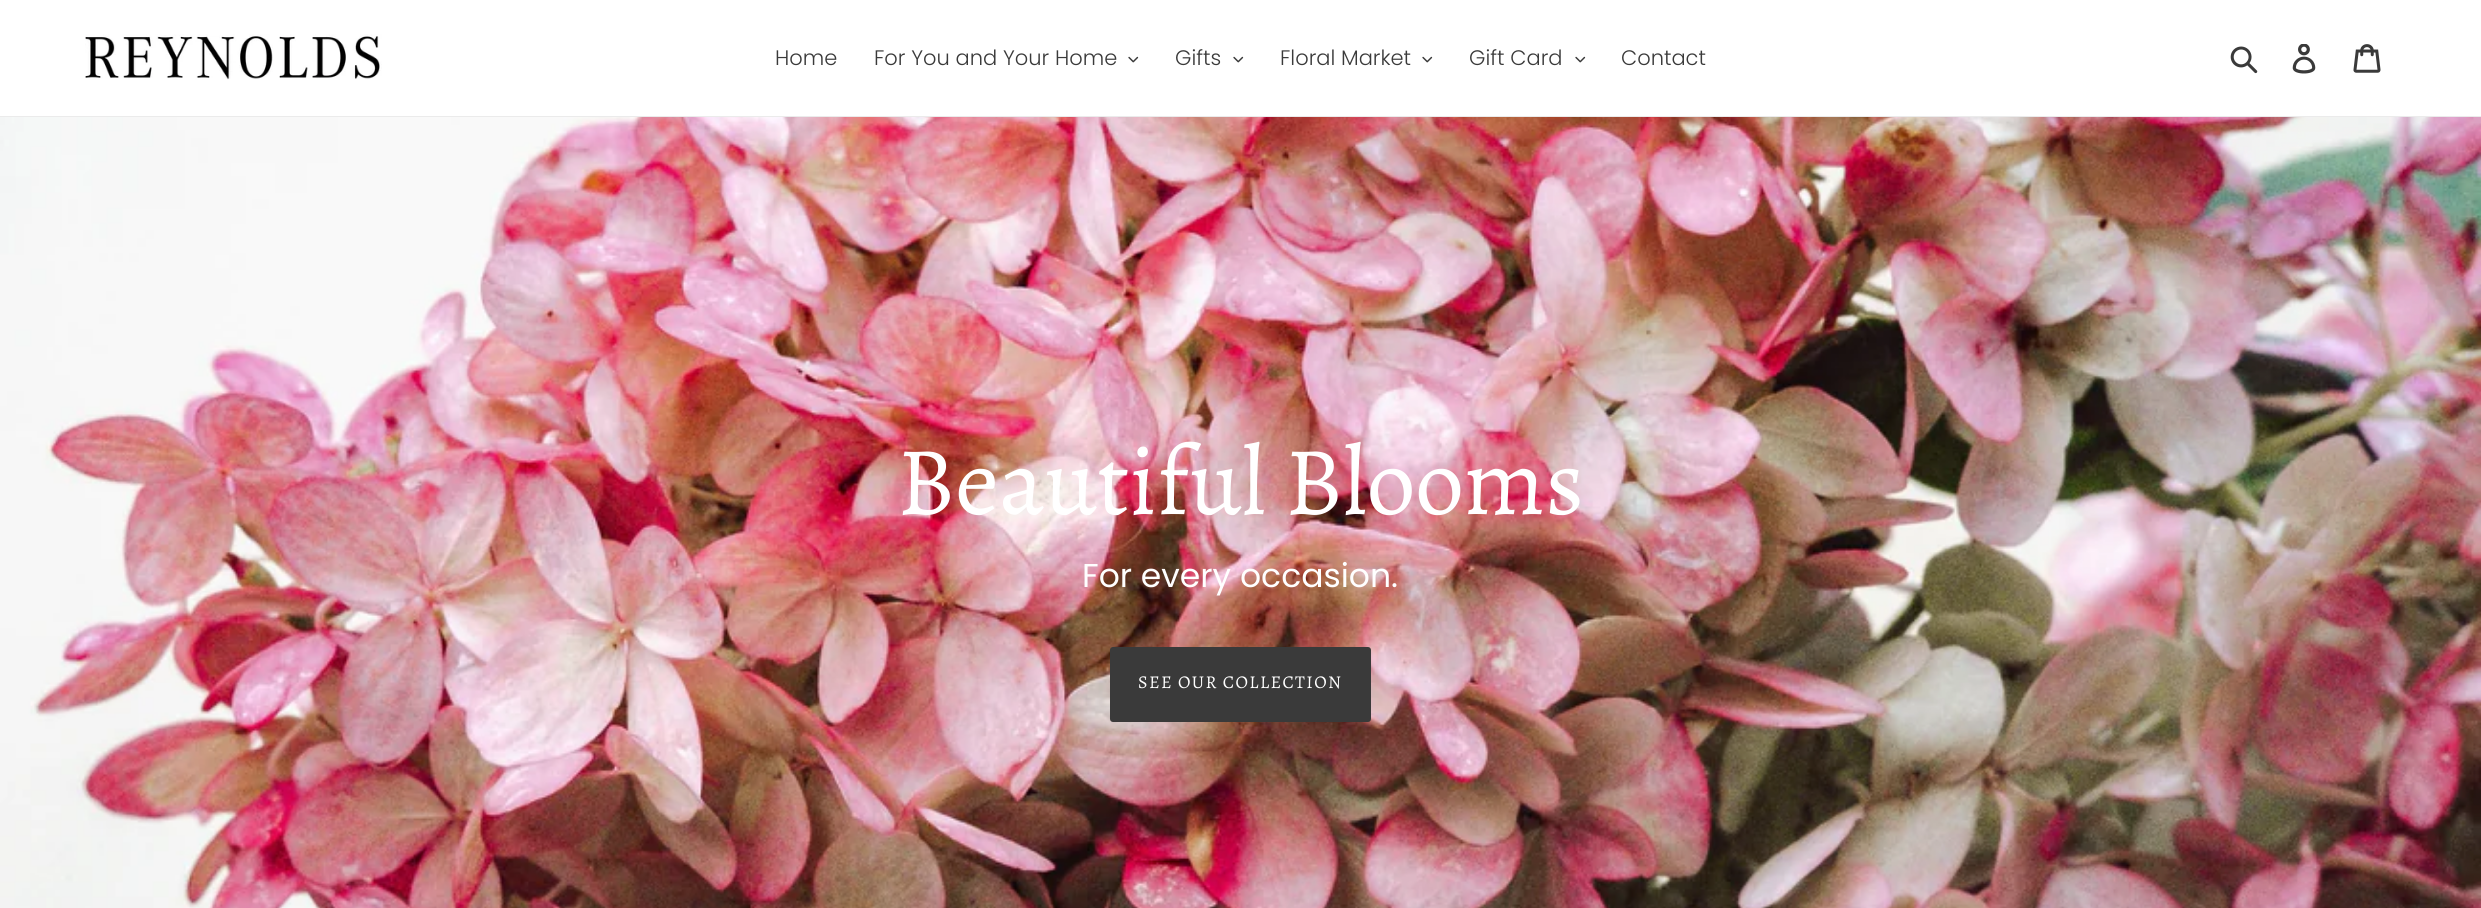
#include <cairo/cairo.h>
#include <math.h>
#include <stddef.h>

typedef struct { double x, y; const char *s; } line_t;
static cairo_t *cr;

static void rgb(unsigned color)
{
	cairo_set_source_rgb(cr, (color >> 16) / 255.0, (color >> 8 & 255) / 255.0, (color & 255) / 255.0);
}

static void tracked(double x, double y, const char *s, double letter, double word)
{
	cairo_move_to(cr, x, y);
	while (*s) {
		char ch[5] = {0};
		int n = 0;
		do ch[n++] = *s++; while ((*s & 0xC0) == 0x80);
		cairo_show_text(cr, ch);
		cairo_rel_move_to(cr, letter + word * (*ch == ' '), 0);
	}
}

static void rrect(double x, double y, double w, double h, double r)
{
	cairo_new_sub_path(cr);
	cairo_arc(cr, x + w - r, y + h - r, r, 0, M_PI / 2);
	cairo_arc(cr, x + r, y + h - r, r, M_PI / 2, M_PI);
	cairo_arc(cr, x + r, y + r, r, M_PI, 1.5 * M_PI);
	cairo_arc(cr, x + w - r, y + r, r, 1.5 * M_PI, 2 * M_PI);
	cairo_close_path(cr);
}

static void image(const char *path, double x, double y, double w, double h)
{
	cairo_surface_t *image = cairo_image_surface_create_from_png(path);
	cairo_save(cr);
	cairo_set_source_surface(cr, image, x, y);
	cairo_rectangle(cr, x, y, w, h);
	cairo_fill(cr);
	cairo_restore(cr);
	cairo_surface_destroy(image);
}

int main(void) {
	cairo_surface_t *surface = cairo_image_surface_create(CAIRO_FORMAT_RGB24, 2481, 908);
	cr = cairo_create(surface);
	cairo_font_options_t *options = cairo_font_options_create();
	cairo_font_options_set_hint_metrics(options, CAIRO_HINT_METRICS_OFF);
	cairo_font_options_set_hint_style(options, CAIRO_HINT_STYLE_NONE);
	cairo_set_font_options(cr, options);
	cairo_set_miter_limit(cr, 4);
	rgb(0xffffff);
	cairo_paint(cr);
	rgb(0xebebeb);
	cairo_rectangle(cr, 0, 116, 2481, 1);
	cairo_fill(cr);
	image("img/1.png", 85, 34, 297, 46);
	image("img/2.png", 1128, 56, 11, 7);
	image("img/2.png", 1233, 56, 11, 7);
	image("img/2.png", 1422, 56, 11, 7);
	image("img/2.png", 1575, 56, 11, 7);
	image("img/3.png", 2230, 46, 28, 28);
	image("img/4.png", 2292, 44, 24, 30);
	image("img/5.png", 2353, 44, 28, 29);
	image("img/6.png", 0, 117, 2481, 791);
	rgb(0x3a3a3a);
	rrect(1110, 647, 261, 75, 3);
	cairo_fill(cr);
	cairo_select_font_face(cr, "Poppins Light", CAIRO_FONT_SLANT_NORMAL, CAIRO_FONT_WEIGHT_NORMAL);
	cairo_set_font_size(cr, 21);
	{
		static const line_t items[] = {
			{775, 65, "Home"},
			{874, 65, "For You and Your Home"},
			{1175, 65, "Gifts"},
			{1280, 65, "Floral Market"},
			{1469, 65, "Gift Card"},
			{1621, 65, "Contact"},
		};
		for (size_t i = 0; i < sizeof items / sizeof *items; i++) {
			cairo_move_to(cr, items[i].x, items[i].y);
			cairo_show_text(cr, items[i].s);
		}
	}
	cairo_select_font_face(cr, "Alegreya", CAIRO_FONT_SLANT_NORMAL, CAIRO_FONT_WEIGHT_NORMAL);
	cairo_set_font_size(cr, 97.5);
	rgb(0xffffff);
	cairo_move_to(cr, 897, 514);
	cairo_show_text(cr, "Beautiful Blooms");
	cairo_select_font_face(cr, "Poppins", CAIRO_FONT_SLANT_NORMAL, CAIRO_FONT_WEIGHT_NORMAL);
	cairo_set_font_size(cr, 33);
	cairo_move_to(cr, 1082, 587);
	cairo_show_text(cr, "For every occasion.");
	cairo_select_font_face(cr, "Alegreya", CAIRO_FONT_SLANT_NORMAL, CAIRO_FONT_WEIGHT_NORMAL);
	cairo_set_font_size(cr, 18);
	tracked(1138, 688, "SEE OUR COLLECTION", 1.4, 0);
	cairo_surface_write_to_png(surface, "page.png");
	cairo_font_options_destroy(options);
	cairo_destroy(cr);
	cairo_surface_destroy(surface);
	return 0;
}
